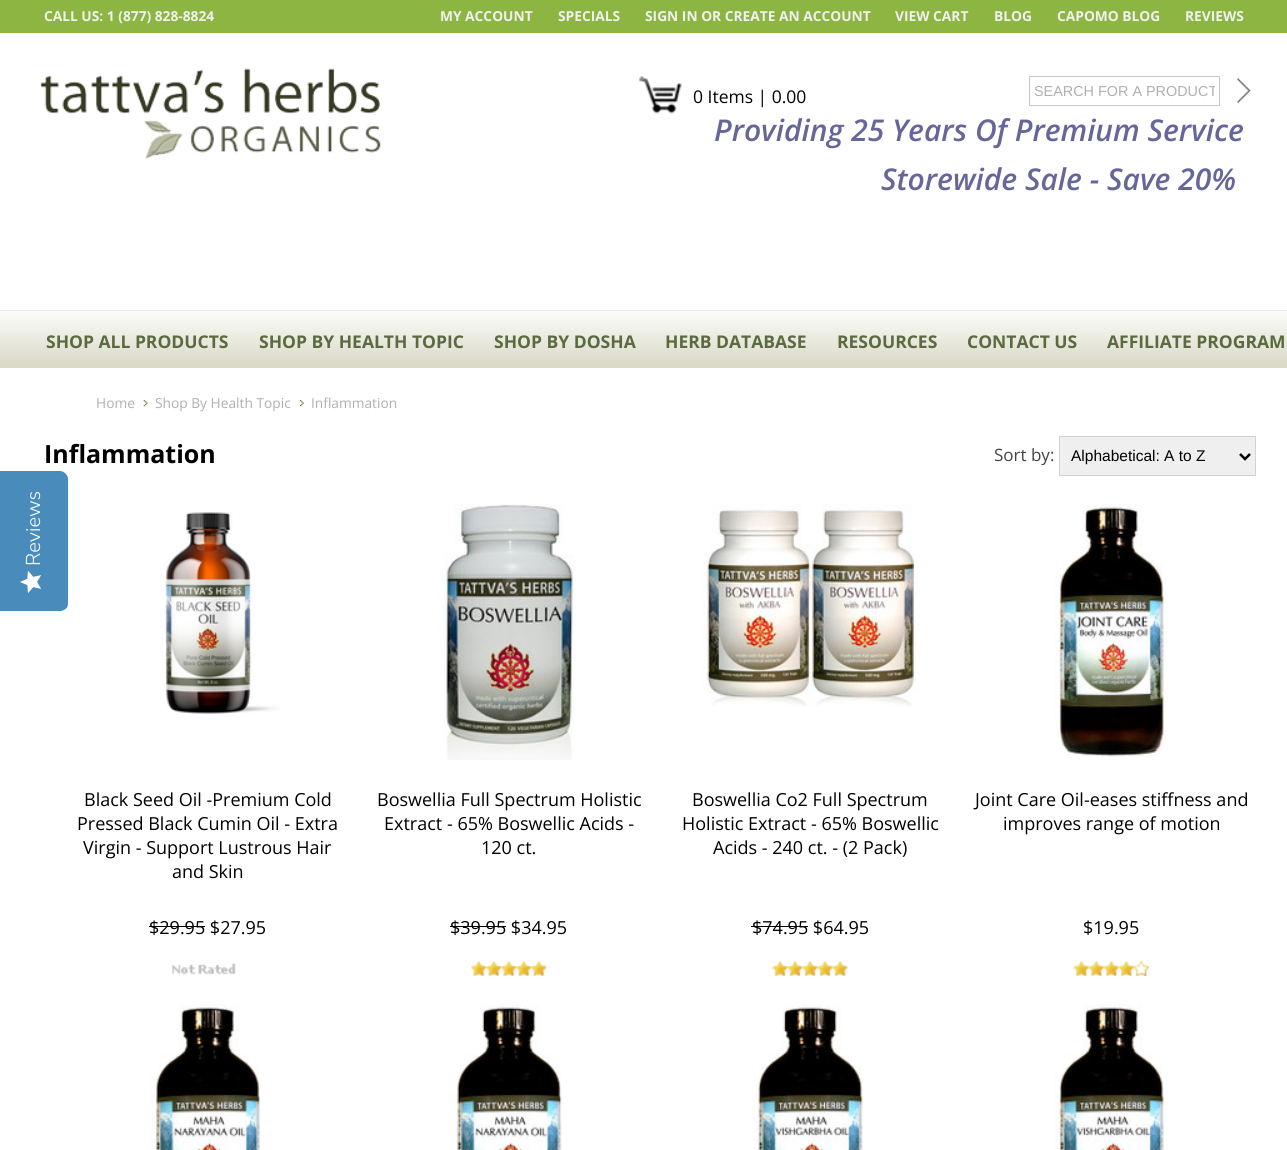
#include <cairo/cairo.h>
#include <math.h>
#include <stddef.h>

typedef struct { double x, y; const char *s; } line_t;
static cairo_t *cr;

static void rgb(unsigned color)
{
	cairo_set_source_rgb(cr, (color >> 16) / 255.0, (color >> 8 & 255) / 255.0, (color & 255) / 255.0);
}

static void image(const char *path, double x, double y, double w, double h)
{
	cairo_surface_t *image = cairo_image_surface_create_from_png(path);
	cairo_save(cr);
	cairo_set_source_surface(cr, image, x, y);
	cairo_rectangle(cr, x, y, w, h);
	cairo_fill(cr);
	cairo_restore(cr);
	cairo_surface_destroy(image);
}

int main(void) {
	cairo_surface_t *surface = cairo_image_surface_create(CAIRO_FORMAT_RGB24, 1287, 1150);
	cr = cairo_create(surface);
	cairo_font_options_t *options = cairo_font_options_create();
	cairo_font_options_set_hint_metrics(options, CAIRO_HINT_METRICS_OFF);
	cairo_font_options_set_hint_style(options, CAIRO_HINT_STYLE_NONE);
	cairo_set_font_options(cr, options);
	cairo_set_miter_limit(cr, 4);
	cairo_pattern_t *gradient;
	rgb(0xffffff);
	cairo_paint(cr);
	rgb(0x498cbc);
	cairo_new_path(cr);
	cairo_move_to(cr, 0, 611);
	cairo_line_to(cr, 0, 471);
	cairo_line_to(cr, 60, 471);
	cairo_curve_to(cr, 64, 471, 68, 475, 68, 479);
	cairo_line_to(cr, 68, 604);
	cairo_curve_to(cr, 68, 608, 64, 611, 60, 611);
	cairo_close_path(cr);
	cairo_fill(cr);
	image("img/1.png", 20, 571, 22, 22);
	rgb(0x8cb541);
	cairo_rectangle(cr, 0, 0, 1287, 33);
	cairo_fill(cr);
	image("img/2.png", 40, 68, 341, 91);
	image("img/3.png", 639, 76, 43, 38);
	cairo_rectangle(cr, 1029.5, 76.5, 190, 29);
	rgb(0xc8c8c8);
	cairo_set_line_width(cr, 1);
	cairo_stroke(cr);
	image("img/4.png", 1236, 78, 15, 26);
	gradient = cairo_pattern_create_linear(644, 311, 644, 368);
	cairo_pattern_add_color_stop_rgba(gradient, 0, 0.988, 0.988, 0.98, 1);
	cairo_pattern_add_color_stop_rgba(gradient, 1, 0.847, 0.843, 0.773, 1);
	cairo_set_source(cr, gradient);
	cairo_pattern_destroy(gradient);
	cairo_rectangle(cr, 0, 311, 1287, 57);
	cairo_fill(cr);
	rgb(0xeaeaea);
	cairo_rectangle(cr, 0, 310, 1287, 1);
	cairo_fill(cr);
	image("img/5.png", 143, 399, 5, 8);
	image("img/6.png", 300, 399, 4, 8);
	rgb(0xefefef);
	cairo_rectangle(cr, 1059.5, 436.5, 196, 39);
	cairo_fill_preserve(cr);
	rgb(0xd2d2d2);
	cairo_stroke(cr);
	cairo_new_path(cr);
	cairo_move_to(cr, 1240, 454);
	cairo_line_to(cr, 1245, 459);
	cairo_line_to(cr, 1250, 454);
	rgb(0x000000);
	cairo_set_line_width(cr, 2.5);
	cairo_stroke(cr);
	image("img/7.png", 165, 512, 115, 202);
	cairo_rectangle(cr, 149, 926, 56, 1);
	cairo_fill(cr);
	image("img/8.png", 172, 963, 64, 12);
	image("img/9.png", 444, 504, 130, 256);
	cairo_rectangle(cr, 450, 926, 56, 1);
	cairo_fill(cr);
	image("img/10.png", 471, 961, 76, 15);
	image("img/11.png", 701, 504, 219, 203);
	cairo_rectangle(cr, 751, 926, 57, 1);
	cairo_fill(cr);
	image("img/12.png", 772, 961, 77, 15);
	image("img/13.png", 1054, 504, 112, 253);
	image("img/14.png", 1073, 961, 76, 15);
	image("img/15.png", 149, 1004, 112, 146);
	image("img/16.png", 450, 1004, 112, 146);
	image("img/17.png", 753, 1004, 110, 146);
	image("img/18.png", 1054, 1004, 110, 146);
	cairo_select_font_face(cr, "Nunito Sans Light", CAIRO_FONT_SLANT_NORMAL, CAIRO_FONT_WEIGHT_NORMAL);
	cairo_set_font_size(cr, 20);
	rgb(0xfefefe);
	cairo_save(cr);
	cairo_translate(cr, 40, 566);
	cairo_rotate(cr, -90 * M_PI / 180);
	cairo_move_to(cr, 0, 0);
	cairo_show_text(cr, "Reviews");
	cairo_restore(cr);
	cairo_select_font_face(cr, "Open Sans", CAIRO_FONT_SLANT_NORMAL, CAIRO_FONT_WEIGHT_BOLD);
	cairo_set_font_size(cr, 13.75);
	rgb(0xf1f1f1);
	{
		static const line_t items[] = {
			{44, 21, "CALL US: 1 (877) 828-8824"},
			{440, 21, "MY ACCOUNT"},
			{558, 21, "SPECIALS"},
			{645, 21, "SIGN IN OR CREATE AN ACCOUNT"},
			{895, 21, "VIEW CART"},
			{994, 21, "BLOG"},
			{1057, 21, "CAPOMO BLOG"},
			{1185, 21, "REVIEWS"},
		};
		for (size_t i = 0; i < sizeof items / sizeof *items; i++) {
			cairo_move_to(cr, items[i].x, items[i].y);
			cairo_show_text(cr, items[i].s);
		}
	}
	cairo_select_font_face(cr, "Open Sans", CAIRO_FONT_SLANT_NORMAL, CAIRO_FONT_WEIGHT_NORMAL);
	cairo_set_font_size(cr, 17.5);
	rgb(0x000000);
	cairo_move_to(cr, 693, 103);
	cairo_show_text(cr, "0 Items | 0.00");
	cairo_save(cr);
	cairo_rectangle(cr, 1034, 84, 181, 15);
	cairo_clip(cr);
	cairo_select_font_face(cr, "Liberation Sans", CAIRO_FONT_SLANT_NORMAL, CAIRO_FONT_WEIGHT_NORMAL);
	cairo_set_font_size(cr, 14.4);
	rgb(0xb0b0b0);
	cairo_move_to(cr, 1034, 96);
	cairo_show_text(cr, "SEARCH FOR A PRODUCT");
	cairo_restore(cr);
	cairo_select_font_face(cr, "Open Sans SemiBold", CAIRO_FONT_SLANT_ITALIC, CAIRO_FONT_WEIGHT_NORMAL);
	cairo_set_font_size(cr, 30);
	rgb(0x666699);
	cairo_move_to(cr, 714, 141);
	cairo_show_text(cr, "Providing 25 Years Of Premium Service");
	cairo_move_to(cr, 881, 190);
	cairo_show_text(cr, "Storewide Sale - Save 20%");
	cairo_select_font_face(cr, "Open Sans", CAIRO_FONT_SLANT_NORMAL, CAIRO_FONT_WEIGHT_BOLD);
	cairo_set_font_size(cr, 17.5);
	rgb(0x5b6a3f);
	{
		static const line_t items[] = {
			{46, 348, "SHOP ALL PRODUCTS"},
			{259, 348, "SHOP BY HEALTH TOPIC"},
			{494, 348, "SHOP BY DOSHA"},
			{665, 348, "HERB DATABASE"},
			{837, 348, "RESOURCES"},
			{967, 348, "CONTACT US"},
			{1107, 348, "AFFILIATE PROGRAM"},
		};
		for (size_t i = 0; i < sizeof items / sizeof *items; i++) {
			cairo_move_to(cr, items[i].x, items[i].y);
			cairo_show_text(cr, items[i].s);
		}
	}
	cairo_select_font_face(cr, "Open Sans", CAIRO_FONT_SLANT_NORMAL, CAIRO_FONT_WEIGHT_NORMAL);
	cairo_set_font_size(cr, 13.75);
	rgb(0xb0b0b0);
	{
		static const line_t items[] = {
			{96, 408, "Home"},
			{155, 408, "Shop By Health Topic"},
			{311, 408, "Inflammation"},
		};
		for (size_t i = 0; i < sizeof items / sizeof *items; i++) {
			cairo_move_to(cr, items[i].x, items[i].y);
			cairo_show_text(cr, items[i].s);
		}
	}
	cairo_select_font_face(cr, "Open Sans", CAIRO_FONT_SLANT_NORMAL, CAIRO_FONT_WEIGHT_BOLD);
	cairo_set_font_size(cr, 25);
	rgb(0x000000);
	cairo_move_to(cr, 44, 463);
	cairo_show_text(cr, "Inflammation");
	cairo_select_font_face(cr, "Open Sans", CAIRO_FONT_SLANT_NORMAL, CAIRO_FONT_WEIGHT_NORMAL);
	cairo_set_font_size(cr, 17);
	rgb(0x444444);
	cairo_move_to(cr, 994, 461);
	cairo_show_text(cr, "Sort by:");
	cairo_select_font_face(cr, "Liberation Sans", CAIRO_FONT_SLANT_NORMAL, CAIRO_FONT_WEIGHT_NORMAL);
	cairo_set_font_size(cr, 15.5);
	rgb(0x000000);
	cairo_move_to(cr, 1071, 461);
	cairo_show_text(cr, "Alphabetical: A to Z");
	cairo_select_font_face(cr, "Open Sans", CAIRO_FONT_SLANT_NORMAL, CAIRO_FONT_WEIGHT_NORMAL);
	cairo_set_font_size(cr, 18);
	{
		static const line_t items[] = {
			{84, 806, "Black Seed Oil -Premium Cold"},
			{77, 830, "Pressed Black Cumin Oil - Extra"},
			{83, 854, "Virgin - Support Lustrous Hair"},
			{172, 878, "and Skin"},
			{149, 934, "$29.95 $27.95"},
			{377, 806, "Boswellia Full Spectrum Holistic"},
			{384, 830, "Extract - 65% Boswellic Acids -"},
			{481, 854, "120 ct."},
			{450, 934, "$39.95 $34.95"},
			{692, 806, "Boswellia Co2 Full Spectrum"},
			{682, 830, "Holistic Extract - 65% Boswellic"},
			{713, 854, "Acids - 240 ct. - (2 Pack)"},
			{752, 934, "$74.95 $64.95"},
			{975, 806, "Joint Care Oil-eases stiffness and"},
			{1003, 830, "improves range of motion"},
			{1083, 934, "$19.95"},
		};
		for (size_t i = 0; i < sizeof items / sizeof *items; i++) {
			cairo_move_to(cr, items[i].x, items[i].y);
			cairo_show_text(cr, items[i].s);
		}
	}
	cairo_surface_write_to_png(surface, "page.png");
	cairo_font_options_destroy(options);
	cairo_destroy(cr);
	cairo_surface_destroy(surface);
	return 0;
}
